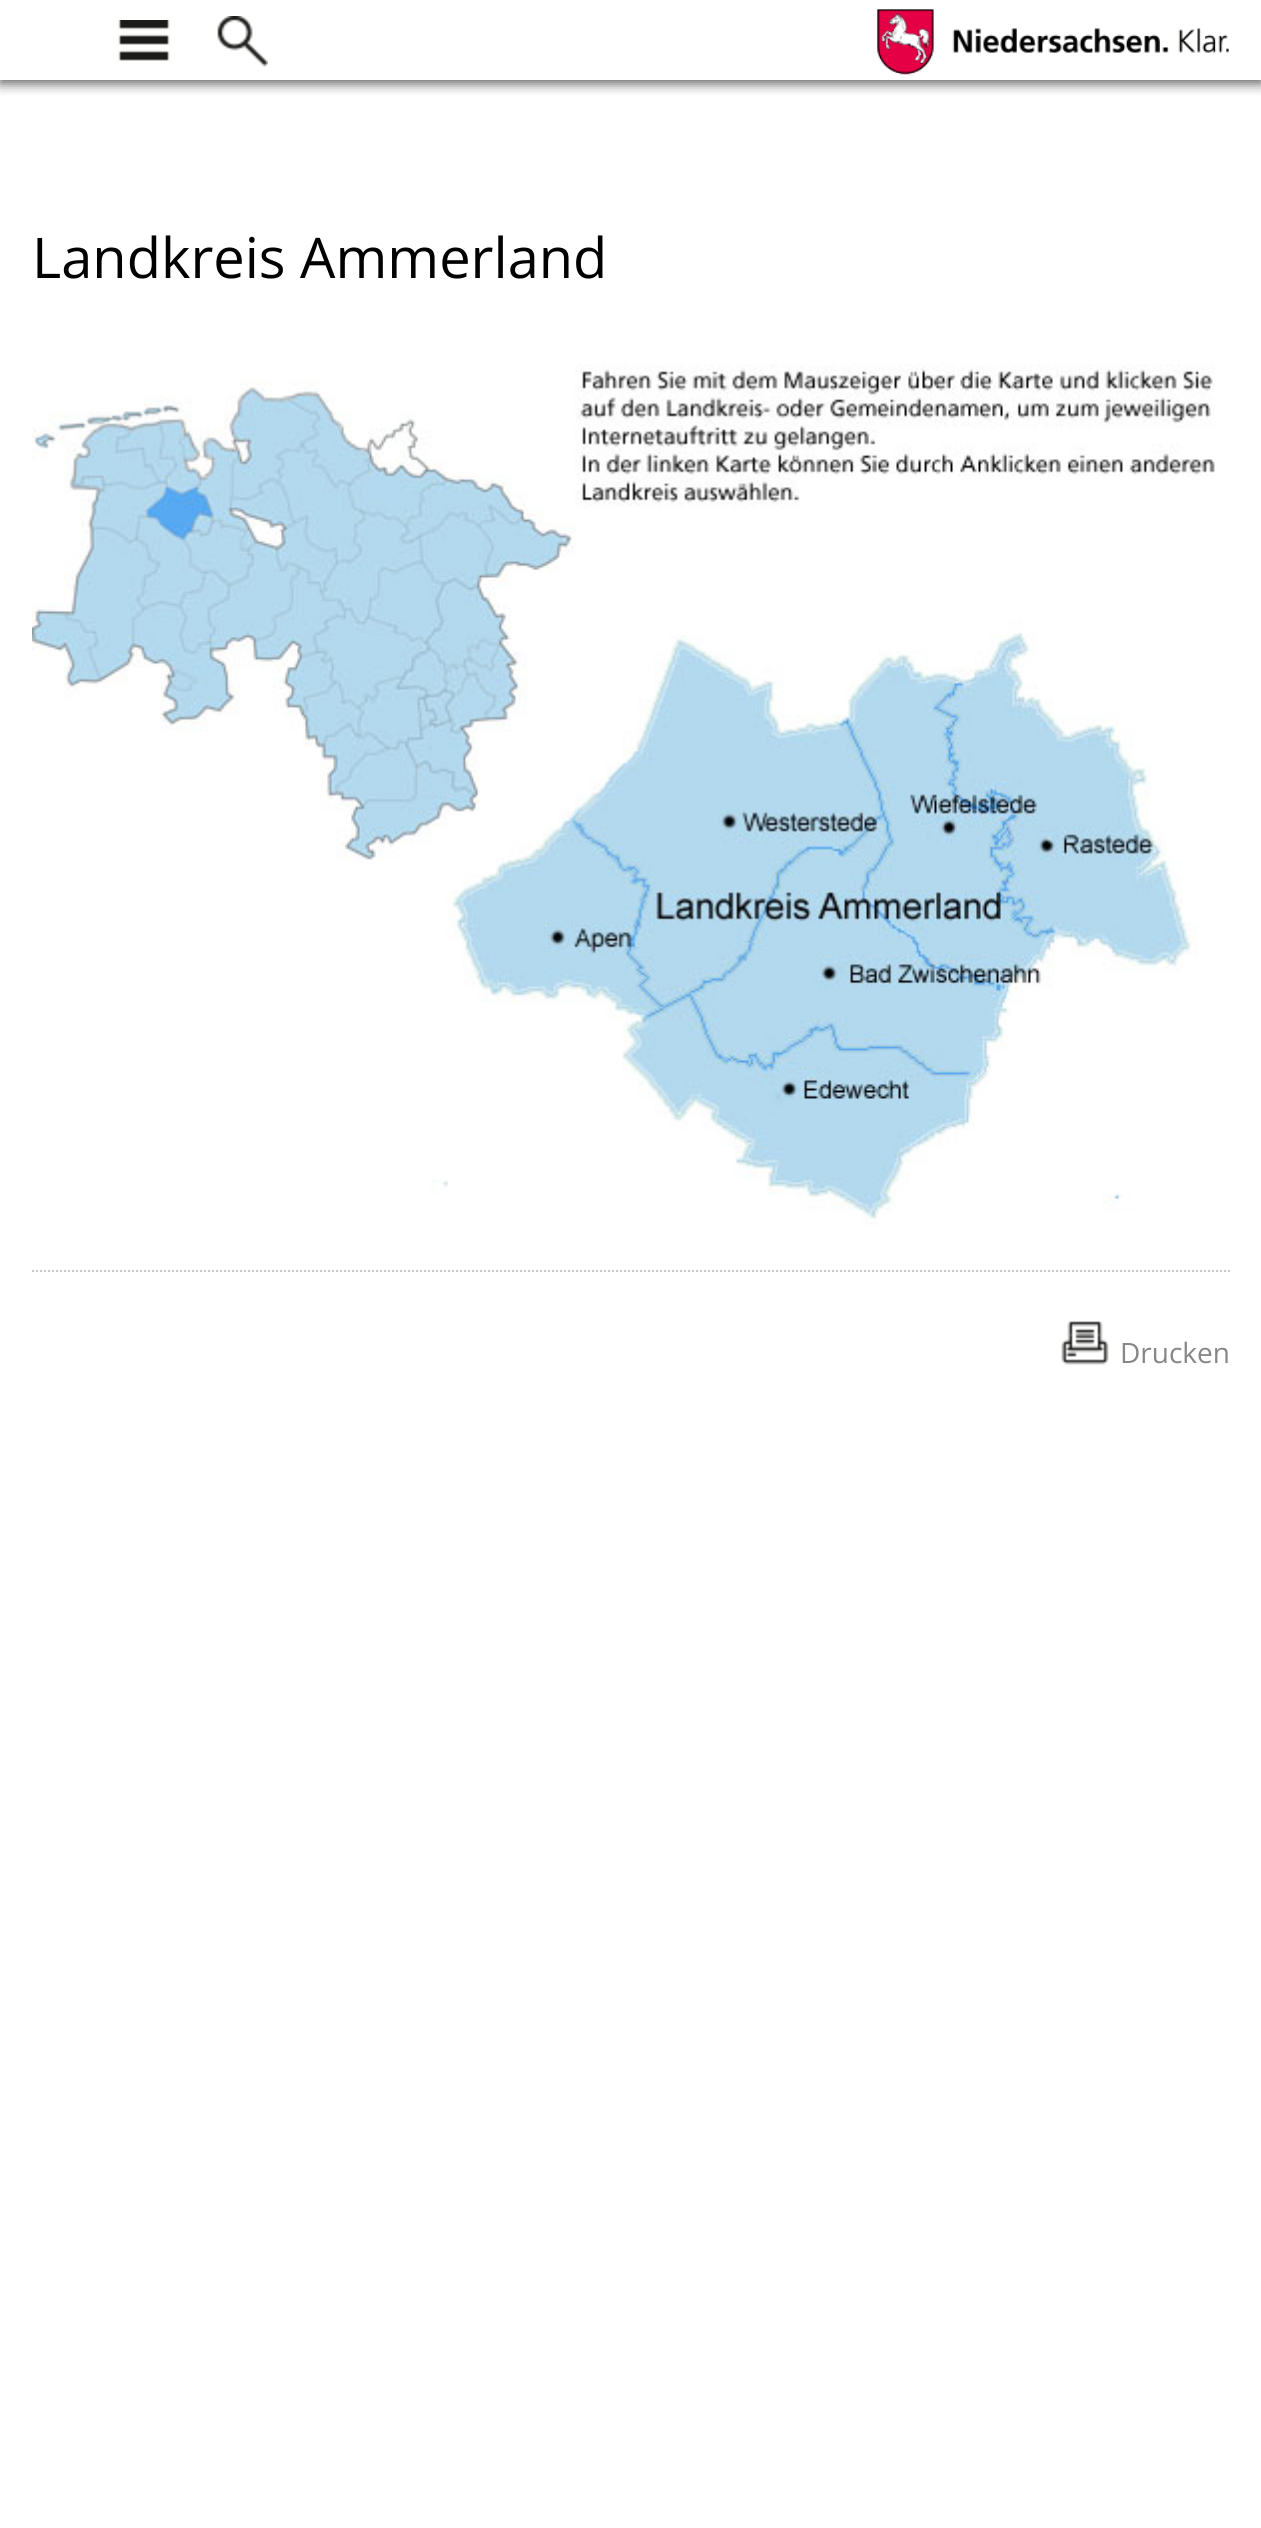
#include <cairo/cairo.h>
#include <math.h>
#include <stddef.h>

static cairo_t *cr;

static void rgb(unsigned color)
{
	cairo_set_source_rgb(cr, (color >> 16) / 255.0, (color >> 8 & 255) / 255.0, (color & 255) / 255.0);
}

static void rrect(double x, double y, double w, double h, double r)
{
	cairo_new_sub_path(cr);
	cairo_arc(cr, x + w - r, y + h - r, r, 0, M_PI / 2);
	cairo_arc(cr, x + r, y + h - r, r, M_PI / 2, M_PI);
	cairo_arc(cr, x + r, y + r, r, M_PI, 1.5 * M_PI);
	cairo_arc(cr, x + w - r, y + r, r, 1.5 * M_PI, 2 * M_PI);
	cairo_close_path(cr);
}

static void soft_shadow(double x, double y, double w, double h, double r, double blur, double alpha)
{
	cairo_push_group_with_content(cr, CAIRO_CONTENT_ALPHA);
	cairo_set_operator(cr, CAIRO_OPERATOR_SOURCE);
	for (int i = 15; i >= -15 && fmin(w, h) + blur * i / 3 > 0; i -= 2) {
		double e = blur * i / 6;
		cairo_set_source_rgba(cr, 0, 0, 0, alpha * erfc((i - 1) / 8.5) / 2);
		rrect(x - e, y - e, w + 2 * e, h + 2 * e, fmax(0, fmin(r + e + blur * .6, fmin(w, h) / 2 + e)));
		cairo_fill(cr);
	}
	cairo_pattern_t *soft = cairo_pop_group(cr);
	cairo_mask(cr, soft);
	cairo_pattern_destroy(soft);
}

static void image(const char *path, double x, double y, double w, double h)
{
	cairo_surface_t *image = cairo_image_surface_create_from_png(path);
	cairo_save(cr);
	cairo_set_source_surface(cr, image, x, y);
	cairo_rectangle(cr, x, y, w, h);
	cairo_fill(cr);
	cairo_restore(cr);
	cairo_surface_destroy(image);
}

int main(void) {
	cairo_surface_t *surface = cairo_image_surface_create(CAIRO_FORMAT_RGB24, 1261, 2528);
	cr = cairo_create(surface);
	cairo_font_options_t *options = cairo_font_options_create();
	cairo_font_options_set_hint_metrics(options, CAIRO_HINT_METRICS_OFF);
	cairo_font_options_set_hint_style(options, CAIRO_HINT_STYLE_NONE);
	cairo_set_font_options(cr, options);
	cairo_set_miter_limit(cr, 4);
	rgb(0xffffff);
	cairo_paint(cr);
	cairo_save(cr);
	cairo_rectangle(cr, 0, 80, 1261, 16);
	cairo_clip(cr);
	rgb(0x666666);
	soft_shadow(0, 4, 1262, 80, 0, 6, 1);
	cairo_restore(cr);
	image("img/1.png", 118, 20, 52, 41);
	image("img/2.png", 217, 16, 51, 51);
	image("img/3.png", 877, 9, 283, 66);
	image("img/4.png", 1162, 28, 67, 25);
	image("img/5.png", 32, 364, 1183, 862);
	cairo_new_path(cr);
	cairo_move_to(cr, 32, 1271);
	cairo_line_to(cr, 1230, 1271);
	rgb(0xc6c6c6);
	cairo_set_dash(cr, (double[]){2, 2}, 2, 0);
	cairo_stroke(cr);
	image("img/6.png", 1061, 1321, 48, 44);
	cairo_select_font_face(cr, "Open Sans", CAIRO_FONT_SLANT_NORMAL, CAIRO_FONT_WEIGHT_NORMAL);
	cairo_set_font_size(cr, 56);
	rgb(0x000000);
	cairo_move_to(cr, 32, 278);
	cairo_show_text(cr, "Landkreis Ammerland");
	cairo_set_font_size(cr, 28);
	rgb(0x878787);
	cairo_move_to(cr, 1120, 1363);
	cairo_show_text(cr, "Drucken");
	cairo_surface_write_to_png(surface, "page.png");
	cairo_font_options_destroy(options);
	cairo_destroy(cr);
	cairo_surface_destroy(surface);
	return 0;
}
